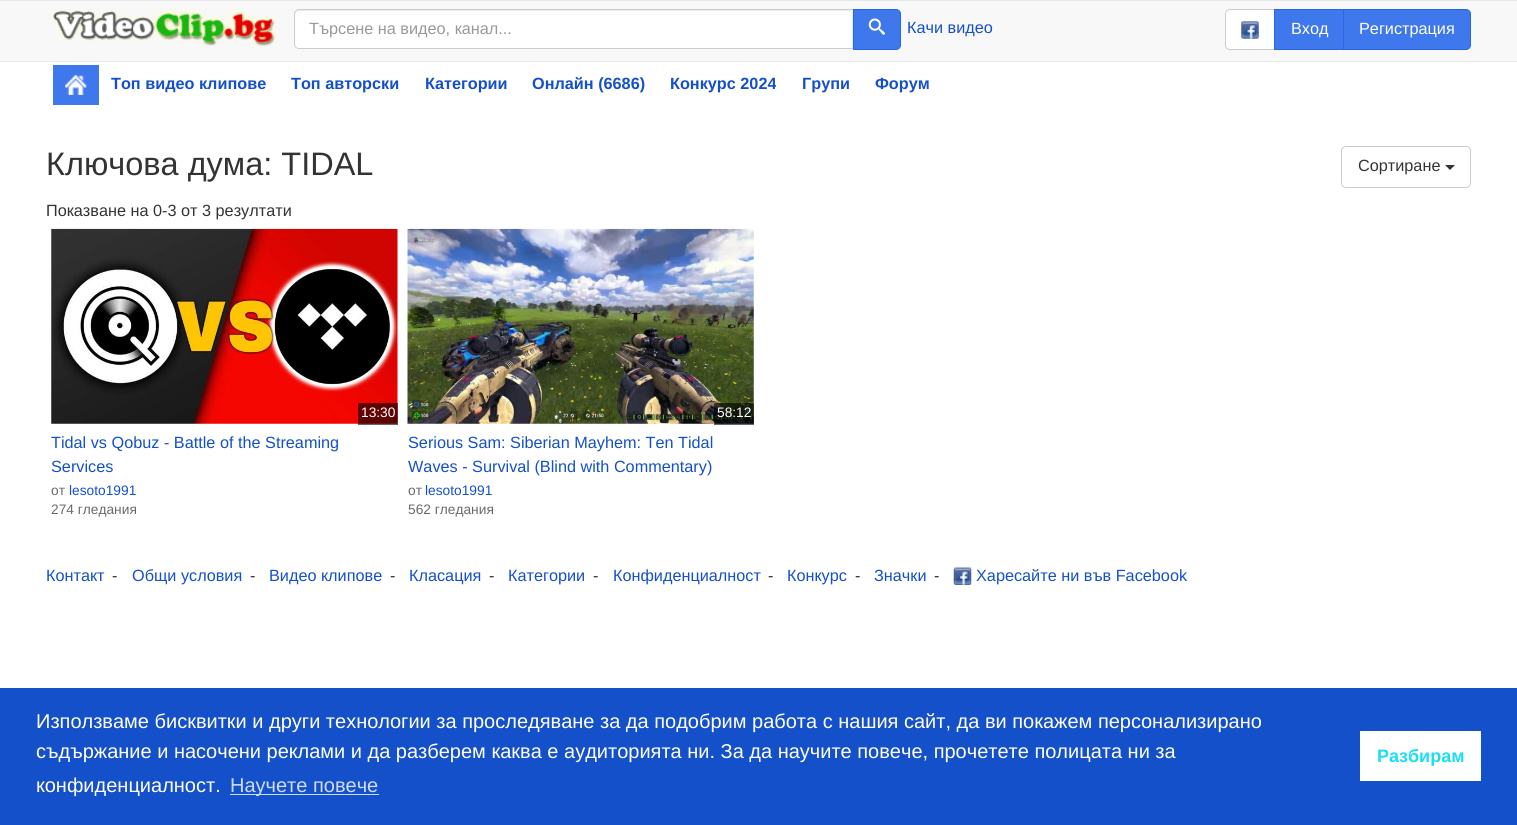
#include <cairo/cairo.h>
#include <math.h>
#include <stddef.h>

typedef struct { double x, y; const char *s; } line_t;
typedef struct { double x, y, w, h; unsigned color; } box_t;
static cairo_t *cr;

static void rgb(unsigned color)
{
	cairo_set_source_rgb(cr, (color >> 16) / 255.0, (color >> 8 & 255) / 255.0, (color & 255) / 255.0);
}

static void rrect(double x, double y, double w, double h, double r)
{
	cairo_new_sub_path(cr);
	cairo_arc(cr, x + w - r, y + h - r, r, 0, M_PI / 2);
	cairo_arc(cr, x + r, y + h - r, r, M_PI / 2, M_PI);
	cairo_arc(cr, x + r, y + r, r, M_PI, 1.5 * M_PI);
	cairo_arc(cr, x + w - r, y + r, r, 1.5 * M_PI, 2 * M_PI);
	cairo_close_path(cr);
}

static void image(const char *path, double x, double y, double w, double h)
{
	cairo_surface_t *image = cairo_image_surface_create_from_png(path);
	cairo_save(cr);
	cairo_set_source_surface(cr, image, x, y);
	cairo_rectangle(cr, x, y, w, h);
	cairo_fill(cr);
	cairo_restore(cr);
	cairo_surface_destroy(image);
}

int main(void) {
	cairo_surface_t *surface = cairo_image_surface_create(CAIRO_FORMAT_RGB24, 1517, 825);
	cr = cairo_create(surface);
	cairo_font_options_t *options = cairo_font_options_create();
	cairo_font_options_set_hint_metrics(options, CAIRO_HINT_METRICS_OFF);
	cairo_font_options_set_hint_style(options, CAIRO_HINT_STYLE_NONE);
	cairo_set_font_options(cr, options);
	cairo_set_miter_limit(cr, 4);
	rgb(0xffffff);
	cairo_paint(cr);
	{
		static const box_t items[] = {
			{0, 1, 1517, 60, 0xf8f8f8},
			{0, 0, 1517, 1, 0xe7e7e7},
			{0, 61, 1517, 1, 0xe7e7e7},
		};
		for (size_t i = 0; i < sizeof items / sizeof *items; i++) {
			rgb(items[i].color);
			cairo_rectangle(cr, items[i].x, items[i].y, items[i].w, items[i].h);
			cairo_fill(cr);
		}
	}
	image("img/1.png", 53, 8, 224, 40);
	rgb(0xffffff);
	cairo_new_path(cr);
	cairo_move_to(cr, 299, 9);
	cairo_line_to(cr, 854, 9);
	cairo_line_to(cr, 854, 49);
	cairo_line_to(cr, 299, 49);
	cairo_curve_to(cr, 296, 49, 294, 47, 294, 44);
	cairo_line_to(cr, 294, 14);
	cairo_curve_to(cr, 294, 11, 296, 9, 299, 9);
	cairo_close_path(cr);
	cairo_fill(cr);
	rgb(0xececec);
	cairo_new_path(cr);
	cairo_move_to(cr, 299, 11);
	cairo_line_to(cr, 852, 11);
	cairo_line_to(cr, 852, 48);
	cairo_line_to(cr, 853, 48);
	cairo_line_to(cr, 853, 10);
	cairo_line_to(cr, 299, 10);
	cairo_curve_to(cr, 296, 10, 295, 12, 295, 15);
	cairo_curve_to(cr, 295, 13, 297, 11, 299, 11);
	cairo_close_path(cr);
	cairo_fill(cr);
	cairo_new_path(cr);
	cairo_move_to(cr, 299, 9.5);
	cairo_line_to(cr, 853.5, 9.5);
	cairo_line_to(cr, 853.5, 48.5);
	cairo_line_to(cr, 299, 48.5);
	cairo_curve_to(cr, 296.5, 48.5, 294.5, 46.5, 294.5, 44);
	cairo_line_to(cr, 294.5, 14);
	cairo_curve_to(cr, 294.5, 11.5, 296.5, 9.5, 299, 9.5);
	cairo_close_path(cr);
	rgb(0xcccccc);
	cairo_set_line_width(cr, 1);
	cairo_stroke(cr);
	rgb(0x3f78ec);
	cairo_new_path(cr);
	cairo_move_to(cr, 853.5, 9.5);
	cairo_line_to(cr, 896, 9.5);
	cairo_curve_to(cr, 898.5, 9.5, 900.5, 11.5, 900.5, 14);
	cairo_line_to(cr, 900.5, 45);
	cairo_curve_to(cr, 900.5, 47.5, 898.5, 49.5, 896, 49.5);
	cairo_line_to(cr, 853.5, 49.5);
	cairo_close_path(cr);
	cairo_fill_preserve(cr);
	rgb(0x2767ea);
	cairo_stroke(cr);
	image("img/2.png", 868, 18, 17, 17);
	rgb(0xffffff);
	cairo_new_path(cr);
	cairo_move_to(cr, 1230, 9.5);
	cairo_line_to(cr, 1274.5, 9.5);
	cairo_line_to(cr, 1274.5, 49.5);
	cairo_line_to(cr, 1230, 49.5);
	cairo_curve_to(cr, 1227.5, 49.5, 1225.5, 47.5, 1225.5, 45);
	cairo_line_to(cr, 1225.5, 14);
	cairo_curve_to(cr, 1225.5, 11.5, 1227.5, 9.5, 1230, 9.5);
	cairo_close_path(cr);
	cairo_fill_preserve(cr);
	rgb(0xcccccc);
	cairo_stroke(cr);
	image("img/3.png", 1241, 21, 18, 18);
	rgb(0x3f78ec);
	cairo_rectangle(cr, 1274.5, 9.5, 69, 40);
	cairo_fill_preserve(cr);
	rgb(0x2767ea);
	cairo_stroke(cr);
	rgb(0x3f78ec);
	cairo_new_path(cr);
	cairo_move_to(cr, 1343.5, 9.5);
	cairo_line_to(cr, 1466, 9.5);
	cairo_curve_to(cr, 1468.5, 9.5, 1470.5, 11.5, 1470.5, 14);
	cairo_line_to(cr, 1470.5, 45);
	cairo_curve_to(cr, 1470.5, 47.5, 1468.5, 49.5, 1466, 49.5);
	cairo_line_to(cr, 1343.5, 49.5);
	cairo_close_path(cr);
	cairo_fill_preserve(cr);
	rgb(0x2767ea);
	cairo_stroke(cr);
	rgb(0x3f78ec);
	cairo_rectangle(cr, 53, 65, 46, 40);
	cairo_fill(cr);
	image("img/4.png", 65, 75, 22, 20);
	rrect(1341.5, 146.5, 129, 41, 4.5);
	rgb(0xcccccc);
	cairo_stroke(cr);
	rgb(0x333333);
	cairo_new_path(cr);
	cairo_move_to(cr, 1445, 165);
	cairo_line_to(cr, 1455, 165);
	cairo_line_to(cr, 1450, 170);
	cairo_close_path(cr);
	cairo_fill(cr);
	image("img/5.png", 51, 228, 347, 196);
	cairo_set_source_rgba(cr, 0, 0, 0, 0.6);
	cairo_rectangle(cr, 358, 403, 40, 22);
	cairo_fill(cr);
	image("img/6.png", 407, 228, 347, 196);
	cairo_rectangle(cr, 714, 403, 40, 22);
	cairo_fill(cr);
	image("img/7.png", 953, 567, 19, 18);
	{
		static const box_t items[] = {
			{0, 688, 1517, 137, 0x1450ca},
			{230, 794, 149, 1, 0xd0dcf4},
			{1360, 731, 121, 50, 0xffffff},
		};
		for (size_t i = 0; i < sizeof items / sizeof *items; i++) {
			rgb(items[i].color);
			cairo_rectangle(cr, items[i].x, items[i].y, items[i].w, items[i].h);
			cairo_fill(cr);
		}
	}
	cairo_select_font_face(cr, "Liberation Sans", CAIRO_FONT_SLANT_NORMAL, CAIRO_FONT_WEIGHT_NORMAL);
	cairo_set_font_size(cr, 16.25);
	rgb(0x999999);
	cairo_move_to(cr, 309, 34);
	cairo_show_text(cr, "Търсене на видео, канал...");
	rgb(0x1450ca);
	cairo_move_to(cr, 907, 33);
	cairo_show_text(cr, "Качи видео");
	rgb(0xffffff);
	cairo_move_to(cr, 1291, 34);
	cairo_show_text(cr, "Вход");
	cairo_move_to(cr, 1359, 34);
	cairo_show_text(cr, "Регистрация");
	cairo_select_font_face(cr, "Liberation Sans", CAIRO_FONT_SLANT_NORMAL, CAIRO_FONT_WEIGHT_BOLD);
	rgb(0x1450ca);
	{
		static const line_t items[] = {
			{111, 89, "Топ видео клипове"},
			{291, 89, "Топ авторски"},
			{425, 89, "Категории"},
			{532, 89, "Онлайн (6686)"},
			{670, 89, "Конкурс 2024"},
			{802, 89, "Групи"},
			{875, 89, "Форум"},
		};
		for (size_t i = 0; i < sizeof items / sizeof *items; i++) {
			cairo_move_to(cr, items[i].x, items[i].y);
			cairo_show_text(cr, items[i].s);
		}
	}
	cairo_select_font_face(cr, "Liberation Sans", CAIRO_FONT_SLANT_NORMAL, CAIRO_FONT_WEIGHT_NORMAL);
	cairo_set_font_size(cr, 32.5);
	rgb(0x333333);
	cairo_move_to(cr, 46, 175);
	cairo_show_text(cr, "Ключова дума: TIDAL");
	cairo_set_font_size(cr, 16.25);
	cairo_move_to(cr, 1358, 171);
	cairo_show_text(cr, "Сортиране");
	cairo_move_to(cr, 46, 216);
	cairo_show_text(cr, "Показване на 0-3 от 3 резултати");
	cairo_set_font_size(cr, 13.75);
	rgb(0xffffff);
	cairo_move_to(cr, 361, 417);
	cairo_show_text(cr, "13:30");
	cairo_set_font_size(cr, 16.25);
	rgb(0x1450ca);
	cairo_move_to(cr, 51, 448);
	cairo_show_text(cr, "Tidal vs Qobuz - Battle of the Streaming");
	cairo_move_to(cr, 51, 472);
	cairo_show_text(cr, "Services");
	cairo_set_font_size(cr, 13.75);
	rgb(0x6a6a6a);
	cairo_move_to(cr, 51, 495);
	cairo_show_text(cr, "от");
	rgb(0x1450ca);
	cairo_move_to(cr, 69, 495);
	cairo_show_text(cr, "lesoto1991");
	rgb(0x6a6a6a);
	cairo_move_to(cr, 51, 514);
	cairo_show_text(cr, "274 гледания");
	rgb(0xffffff);
	cairo_move_to(cr, 717, 417);
	cairo_show_text(cr, "58:12");
	cairo_set_font_size(cr, 16.25);
	rgb(0x1450ca);
	cairo_move_to(cr, 408, 448);
	cairo_show_text(cr, "Serious Sam: Siberian Mayhem: Ten Tidal");
	cairo_move_to(cr, 408, 472);
	cairo_show_text(cr, "Waves - Survival (Blind with Commentary)");
	cairo_set_font_size(cr, 13.75);
	rgb(0x6a6a6a);
	cairo_move_to(cr, 408, 495);
	cairo_show_text(cr, "от");
	rgb(0x1450ca);
	cairo_move_to(cr, 425, 495);
	cairo_show_text(cr, "lesoto1991");
	rgb(0x6a6a6a);
	cairo_move_to(cr, 408, 514);
	cairo_show_text(cr, "562 гледания");
	cairo_set_font_size(cr, 16.25);
	rgb(0x1450ca);
	cairo_move_to(cr, 46, 581);
	cairo_show_text(cr, "Контакт");
	rgb(0x333333);
	cairo_move_to(cr, 112, 581);
	cairo_show_text(cr, "-");
	rgb(0x1450ca);
	cairo_move_to(cr, 132, 581);
	cairo_show_text(cr, "Общи условия");
	rgb(0x333333);
	cairo_move_to(cr, 250, 581);
	cairo_show_text(cr, "-");
	rgb(0x1450ca);
	cairo_move_to(cr, 269, 581);
	cairo_show_text(cr, "Видео клипове");
	rgb(0x333333);
	cairo_move_to(cr, 390, 581);
	cairo_show_text(cr, "-");
	rgb(0x1450ca);
	cairo_move_to(cr, 409, 581);
	cairo_show_text(cr, "Класация");
	rgb(0x333333);
	cairo_move_to(cr, 489, 581);
	cairo_show_text(cr, "-");
	rgb(0x1450ca);
	cairo_move_to(cr, 508, 581);
	cairo_show_text(cr, "Категории");
	rgb(0x333333);
	cairo_move_to(cr, 593, 581);
	cairo_show_text(cr, "-");
	rgb(0x1450ca);
	cairo_move_to(cr, 613, 581);
	cairo_show_text(cr, "Конфиденциалност");
	rgb(0x333333);
	cairo_move_to(cr, 768, 581);
	cairo_show_text(cr, "-");
	rgb(0x1450ca);
	cairo_move_to(cr, 787, 581);
	cairo_show_text(cr, "Конкурс");
	rgb(0x333333);
	cairo_move_to(cr, 855, 581);
	cairo_show_text(cr, "-");
	rgb(0x1450ca);
	cairo_move_to(cr, 874, 581);
	cairo_show_text(cr, "Значки");
	rgb(0x333333);
	cairo_move_to(cr, 934, 581);
	cairo_show_text(cr, "-");
	rgb(0x1450ca);
	cairo_move_to(cr, 976, 581);
	cairo_show_text(cr, "Харесайте ни във Facebook");
	cairo_set_font_size(cr, 20);
	rgb(0xffffff);
	{
		static const line_t items[] = {
			{36, 728, "Използваме бисквитки и други технологии за проследяване за да подобрим работа с нашия сайт, да ви покажем персонализирано"},
			{36, 758, "съдържание и насочени реклами и да разберем каква е аудиторията ни. За да научите повече, прочетете полицата ни за"},
			{36, 792, "конфиденциалност."},
		};
		for (size_t i = 0; i < sizeof items / sizeof *items; i++) {
			cairo_move_to(cr, items[i].x, items[i].y);
			cairo_show_text(cr, items[i].s);
		}
	}
	rgb(0xd0dcf4);
	cairo_move_to(cr, 230, 792);
	cairo_show_text(cr, "Научете повече");
	cairo_select_font_face(cr, "Liberation Sans", CAIRO_FONT_SLANT_NORMAL, CAIRO_FONT_WEIGHT_BOLD);
	cairo_set_font_size(cr, 18);
	rgb(0x1adfee);
	cairo_move_to(cr, 1377, 762);
	cairo_show_text(cr, "Разбирам");
	cairo_surface_write_to_png(surface, "page.png");
	cairo_font_options_destroy(options);
	cairo_destroy(cr);
	cairo_surface_destroy(surface);
	return 0;
}
